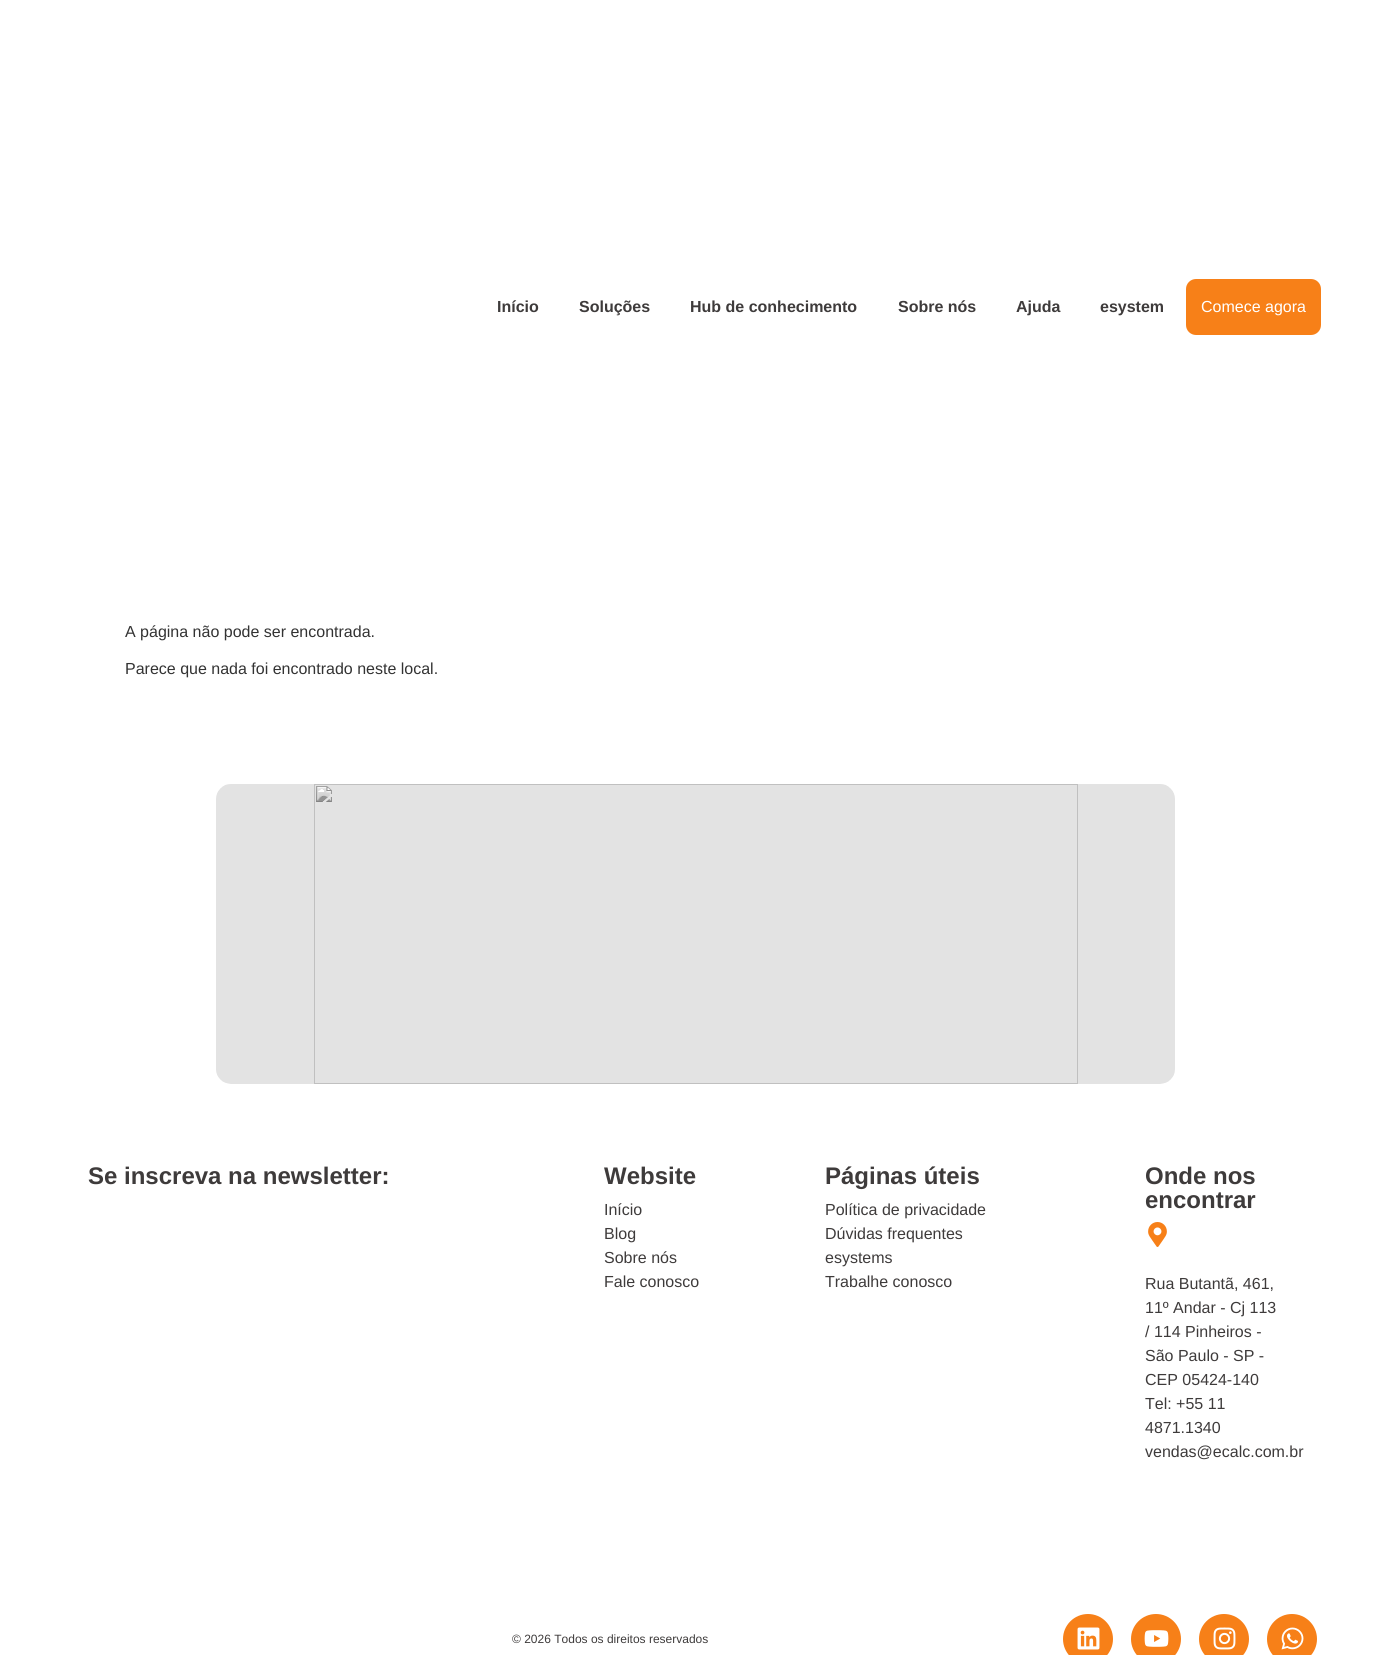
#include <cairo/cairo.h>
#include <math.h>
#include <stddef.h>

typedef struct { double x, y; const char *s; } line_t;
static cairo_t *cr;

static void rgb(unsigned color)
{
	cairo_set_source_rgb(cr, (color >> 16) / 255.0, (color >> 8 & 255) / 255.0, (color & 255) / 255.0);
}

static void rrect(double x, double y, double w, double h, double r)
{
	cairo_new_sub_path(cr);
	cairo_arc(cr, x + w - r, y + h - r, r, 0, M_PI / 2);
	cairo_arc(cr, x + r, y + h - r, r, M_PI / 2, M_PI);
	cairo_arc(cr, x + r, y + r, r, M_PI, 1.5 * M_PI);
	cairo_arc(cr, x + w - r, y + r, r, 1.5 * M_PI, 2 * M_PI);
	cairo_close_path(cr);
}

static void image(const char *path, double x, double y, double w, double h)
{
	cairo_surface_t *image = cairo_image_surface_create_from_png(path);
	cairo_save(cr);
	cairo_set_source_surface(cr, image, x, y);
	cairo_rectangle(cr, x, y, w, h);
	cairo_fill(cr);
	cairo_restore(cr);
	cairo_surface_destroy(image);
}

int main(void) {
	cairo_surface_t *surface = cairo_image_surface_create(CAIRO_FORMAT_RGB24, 1390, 1655);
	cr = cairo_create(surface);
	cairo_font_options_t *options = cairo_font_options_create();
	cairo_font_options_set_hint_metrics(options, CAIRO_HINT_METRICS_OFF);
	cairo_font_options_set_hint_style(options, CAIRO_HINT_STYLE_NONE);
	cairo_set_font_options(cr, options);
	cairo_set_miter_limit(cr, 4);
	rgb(0xffffff);
	cairo_paint(cr);
	rgb(0xf78018);
	rrect(1186, 279, 135, 56, 10);
	cairo_fill(cr);
	image("img/1.png", 216, 784, 959, 300);
	image("img/2.png", 1148, 1222, 19, 25);
	cairo_arc(cr, 1088, 1639, 25, 0, 2 * M_PI);
	cairo_fill(cr);
	image("img/3.png", 1077, 1627, 23, 23);
	cairo_arc(cr, 1156, 1639, 25, 0, 2 * M_PI);
	cairo_fill(cr);
	image("img/4.png", 1144, 1630, 25, 17);
	cairo_arc(cr, 1224, 1639, 25, 0, 2 * M_PI);
	cairo_fill(cr);
	image("img/5.png", 1213, 1627, 23, 23);
	cairo_arc(cr, 1292, 1639, 25, 0, 2 * M_PI);
	cairo_fill(cr);
	image("img/6.png", 1281, 1627, 23, 23);
	cairo_select_font_face(cr, "Liberation Sans", CAIRO_FONT_SLANT_NORMAL, CAIRO_FONT_WEIGHT_BOLD);
	cairo_set_font_size(cr, 16);
	rgb(0x3e3b3b);
	{
		static const line_t items[] = {
			{497, 312, "Início"},
			{579, 312, "Soluções"},
			{690, 312, "Hub de conhecimento"},
			{898, 312, "Sobre nós"},
			{1016, 312, "Ajuda"},
			{1100, 312, "esystem"},
		};
		for (size_t i = 0; i < sizeof items / sizeof *items; i++) {
			cairo_move_to(cr, items[i].x, items[i].y);
			cairo_show_text(cr, items[i].s);
		}
	}
	cairo_select_font_face(cr, "Liberation Sans", CAIRO_FONT_SLANT_NORMAL, CAIRO_FONT_WEIGHT_NORMAL);
	rgb(0xffffff);
	cairo_move_to(cr, 1201, 312);
	cairo_show_text(cr, "Comece agora");
	rgb(0x333333);
	cairo_move_to(cr, 125, 637);
	cairo_show_text(cr, "A página não pode ser encontrada.");
	cairo_move_to(cr, 125, 674);
	cairo_show_text(cr, "Parece que nada foi encontrado neste local.");
	cairo_select_font_face(cr, "Liberation Sans", CAIRO_FONT_SLANT_NORMAL, CAIRO_FONT_WEIGHT_BOLD);
	cairo_set_font_size(cr, 24);
	rgb(0x3e3b3b);
	cairo_move_to(cr, 88, 1184);
	cairo_show_text(cr, "Se inscreva na newsletter:");
	cairo_move_to(cr, 604, 1184);
	cairo_show_text(cr, "Website");
	cairo_select_font_face(cr, "Liberation Sans", CAIRO_FONT_SLANT_NORMAL, CAIRO_FONT_WEIGHT_NORMAL);
	cairo_set_font_size(cr, 16);
	{
		static const line_t items[] = {
			{604, 1215, "Início"},
			{604, 1239, "Blog"},
			{604, 1263, "Sobre nós"},
			{604, 1287, "Fale conosco"},
		};
		for (size_t i = 0; i < sizeof items / sizeof *items; i++) {
			cairo_move_to(cr, items[i].x, items[i].y);
			cairo_show_text(cr, items[i].s);
		}
	}
	cairo_select_font_face(cr, "Liberation Sans", CAIRO_FONT_SLANT_NORMAL, CAIRO_FONT_WEIGHT_BOLD);
	cairo_set_font_size(cr, 24);
	cairo_move_to(cr, 825, 1184);
	cairo_show_text(cr, "Páginas úteis");
	cairo_select_font_face(cr, "Liberation Sans", CAIRO_FONT_SLANT_NORMAL, CAIRO_FONT_WEIGHT_NORMAL);
	cairo_set_font_size(cr, 16);
	{
		static const line_t items[] = {
			{825, 1215, "Política de privacidade"},
			{825, 1239, "Dúvidas frequentes"},
			{825, 1263, "esystems"},
			{825, 1287, "Trabalhe conosco"},
		};
		for (size_t i = 0; i < sizeof items / sizeof *items; i++) {
			cairo_move_to(cr, items[i].x, items[i].y);
			cairo_show_text(cr, items[i].s);
		}
	}
	cairo_select_font_face(cr, "Liberation Sans", CAIRO_FONT_SLANT_NORMAL, CAIRO_FONT_WEIGHT_BOLD);
	cairo_set_font_size(cr, 24);
	cairo_move_to(cr, 1145, 1184);
	cairo_show_text(cr, "Onde nos");
	cairo_move_to(cr, 1145, 1208);
	cairo_show_text(cr, "encontrar");
	cairo_select_font_face(cr, "Liberation Sans", CAIRO_FONT_SLANT_NORMAL, CAIRO_FONT_WEIGHT_NORMAL);
	cairo_set_font_size(cr, 16);
	{
		static const line_t items[] = {
			{1145, 1289, "Rua Butantã, 461,"},
			{1145, 1313, "11º Andar - Cj 113"},
			{1145, 1337, "/ 114 Pinheiros -"},
			{1145, 1361, "São Paulo - SP -"},
			{1145, 1385, "CEP 05424-140"},
			{1145, 1409, "Tel: +55 11"},
			{1145, 1433, "4871.1340"},
			{1145, 1457, "vendas@ecalc.com.br"},
		};
		for (size_t i = 0; i < sizeof items / sizeof *items; i++) {
			cairo_move_to(cr, items[i].x, items[i].y);
			cairo_show_text(cr, items[i].s);
		}
	}
	cairo_set_font_size(cr, 12);
	cairo_move_to(cr, 512, 1643);
	cairo_show_text(cr, "© 2026 Todos os direitos reservados");
	cairo_surface_write_to_png(surface, "page.png");
	cairo_font_options_destroy(options);
	cairo_destroy(cr);
	cairo_surface_destroy(surface);
	return 0;
}
